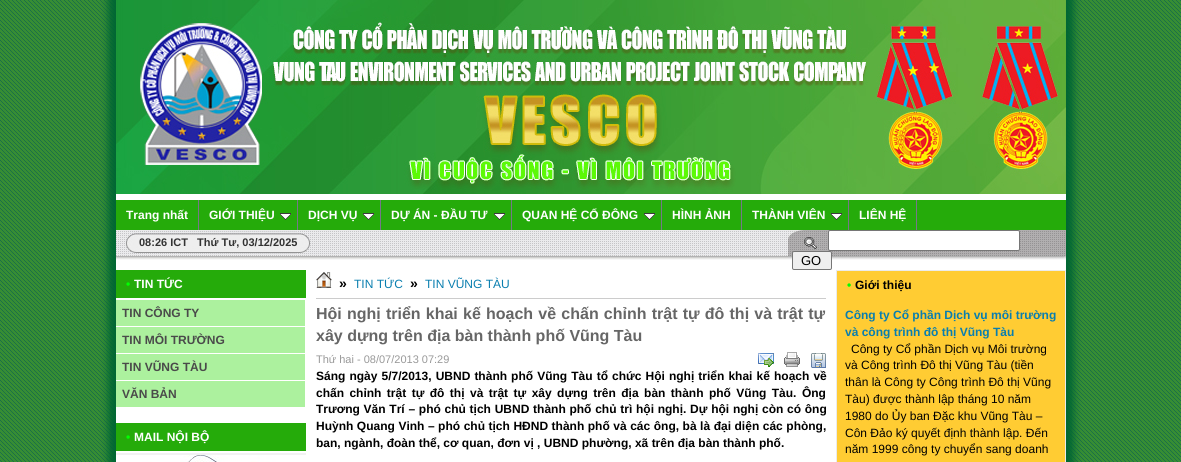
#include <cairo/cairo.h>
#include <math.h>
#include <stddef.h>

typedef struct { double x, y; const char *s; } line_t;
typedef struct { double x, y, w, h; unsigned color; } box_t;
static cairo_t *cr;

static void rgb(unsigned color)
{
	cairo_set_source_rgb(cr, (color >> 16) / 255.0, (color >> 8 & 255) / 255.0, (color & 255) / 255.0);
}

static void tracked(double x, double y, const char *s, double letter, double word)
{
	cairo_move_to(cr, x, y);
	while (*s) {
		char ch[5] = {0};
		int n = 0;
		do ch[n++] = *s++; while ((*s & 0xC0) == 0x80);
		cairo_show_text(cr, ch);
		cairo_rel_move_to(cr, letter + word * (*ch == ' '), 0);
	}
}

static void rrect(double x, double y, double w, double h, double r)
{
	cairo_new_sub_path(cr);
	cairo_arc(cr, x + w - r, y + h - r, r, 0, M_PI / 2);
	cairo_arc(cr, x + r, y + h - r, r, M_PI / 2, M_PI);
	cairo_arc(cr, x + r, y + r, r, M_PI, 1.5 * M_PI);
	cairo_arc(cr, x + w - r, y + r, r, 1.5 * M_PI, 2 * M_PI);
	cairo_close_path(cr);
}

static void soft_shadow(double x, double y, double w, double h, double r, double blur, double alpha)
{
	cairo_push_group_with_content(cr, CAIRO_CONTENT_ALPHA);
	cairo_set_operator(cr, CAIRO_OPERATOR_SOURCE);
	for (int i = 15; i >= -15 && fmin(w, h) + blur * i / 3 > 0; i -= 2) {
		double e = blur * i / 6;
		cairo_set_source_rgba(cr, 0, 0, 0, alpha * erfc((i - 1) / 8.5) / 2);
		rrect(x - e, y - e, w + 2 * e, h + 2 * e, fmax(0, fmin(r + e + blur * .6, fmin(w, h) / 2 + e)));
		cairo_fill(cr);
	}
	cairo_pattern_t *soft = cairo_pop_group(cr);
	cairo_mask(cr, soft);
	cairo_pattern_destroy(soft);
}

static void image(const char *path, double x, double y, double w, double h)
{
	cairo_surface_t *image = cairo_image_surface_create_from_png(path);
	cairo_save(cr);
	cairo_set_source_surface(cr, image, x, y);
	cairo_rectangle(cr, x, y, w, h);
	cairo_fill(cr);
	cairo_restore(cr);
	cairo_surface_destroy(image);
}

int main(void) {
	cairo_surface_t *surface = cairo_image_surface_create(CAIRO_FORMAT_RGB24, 1181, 462);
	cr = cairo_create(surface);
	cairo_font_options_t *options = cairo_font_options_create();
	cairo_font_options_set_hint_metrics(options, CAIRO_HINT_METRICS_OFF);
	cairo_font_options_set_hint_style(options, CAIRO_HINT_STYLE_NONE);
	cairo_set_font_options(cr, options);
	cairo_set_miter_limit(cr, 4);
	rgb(0xffffff);
	cairo_paint(cr);
	image("img/1.png", 0, 0, 1181, 462);
	rgb(0x006633);
	soft_shadow(108, -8, 966, 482, 0, 4, 1);
	rgb(0xffffff);
	cairo_rectangle(cr, 116, 194, 950, 268);
	cairo_fill(cr);
	image("img/2.png", 116, 0, 950, 194);
	{
		static const box_t items[] = {
			{116, 200, 950, 30, 0x25ab0a},
			{198, 200, 1, 30, 0x777788},
			{297, 200, 1, 30, 0x777788},
		};
		for (size_t i = 0; i < sizeof items / sizeof *items; i++) {
			rgb(items[i].color);
			cairo_rectangle(cr, items[i].x, items[i].y, items[i].w, items[i].h);
			cairo_fill(cr);
		}
	}
	image("img/3.png", 280, 213, 11, 7);
	cairo_rectangle(cr, 380, 200, 1, 30);
	cairo_fill(cr);
	image("img/3.png", 363, 213, 11, 7);
	cairo_rectangle(cr, 511, 200, 1, 30);
	cairo_fill(cr);
	image("img/3.png", 494, 213, 11, 7);
	cairo_rectangle(cr, 661, 200, 1, 30);
	cairo_fill(cr);
	image("img/3.png", 644, 213, 11, 7);
	cairo_rectangle(cr, 741, 200, 1, 30);
	cairo_fill(cr);
	cairo_rectangle(cr, 848, 200, 1, 30);
	cairo_fill(cr);
	image("img/3.png", 831, 213, 11, 7);
	cairo_rectangle(cr, 916, 200, 1, 30);
	cairo_fill(cr);
	image("img/4.png", 116, 230, 950, 30);
	image("img/5.png", 297, 233, 13, 20);
	image("img/6.png", 126, 231, 171, 23);
	image("img/7.png", 788, 230, 278, 29);
	rgb(0xffffff);
	rrect(828.5, 230.5, 191, 20, 1.5);
	cairo_fill_preserve(cr);
	rgb(0x767676);
	cairo_set_line_width(cr, 1);
	cairo_stroke(cr);
	rgb(0xefefef);
	rrect(792.5, 251.5, 39, 18, 1.5);
	cairo_fill_preserve(cr);
	rgb(0x767676);
	cairo_stroke(cr);
	{
		static const box_t items[] = {
			{116, 270, 190, 28, 0x25ab0a},
			{116, 300, 189, 26, 0xacf19e},
			{116, 327, 189, 26, 0xacf19e},
			{116, 354, 189, 26, 0xacf19e},
			{116, 381, 189, 26, 0xacf19e},
			{116, 453, 190, 2, 0xf2f2f2},
			{116, 423, 190, 28, 0x25ab0a},
		};
		for (size_t i = 0; i < sizeof items / sizeof *items; i++) {
			rgb(items[i].color);
			cairo_rectangle(cr, items[i].x, items[i].y, items[i].w, items[i].h);
			cairo_fill(cr);
		}
	}
	image("img/8.png", 116, 455, 190, 7);
	rgb(0xcccccc);
	cairo_rectangle(cr, 316, 298, 510, 1);
	cairo_fill(cr);
	image("img/9.png", 316, 272, 16, 16);
	image("img/10.png", 758, 353, 16, 14);
	image("img/11.png", 784, 352, 16, 15);
	image("img/12.png", 811, 353, 15, 15);
	rgb(0xffcc33);
	cairo_rectangle(cr, 836.5, 270.5, 229, 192);
	cairo_fill_preserve(cr);
	rgb(0xebebeb);
	cairo_stroke(cr);
	cairo_select_font_face(cr, "Liberation Sans", CAIRO_FONT_SLANT_NORMAL, CAIRO_FONT_WEIGHT_BOLD);
	cairo_set_font_size(cr, 12);
	rgb(0xffffff);
	{
		static const line_t items[] = {
			{126, 219, "Trang nhất"},
			{209, 219, "GIỚI THIỆU"},
			{308, 219, "DỊCH VỤ"},
			{391, 219, "DỰ ÁN - ĐẦU TƯ"},
			{522, 219, "QUAN HỆ CỔ ĐÔNG"},
			{672, 219, "HÌNH ẢNH"},
			{752, 219, "THÀNH VIÊN"},
			{859, 219, "LIÊN HỆ"},
		};
		for (size_t i = 0; i < sizeof items / sizeof *items; i++) {
			cairo_move_to(cr, items[i].x, items[i].y);
			cairo_show_text(cr, items[i].s);
		}
	}
	cairo_set_font_size(cr, 11);
	rgb(0x333333);
	cairo_move_to(cr, 139, 246);
	cairo_show_text(cr, "08:26 ICT   Thứ Tư, 03/12/2025");
	cairo_select_font_face(cr, "Liberation Sans", CAIRO_FONT_SLANT_NORMAL, CAIRO_FONT_WEIGHT_NORMAL);
	cairo_set_font_size(cr, 13);
	rgb(0x000000);
	cairo_move_to(cr, 801, 265);
	cairo_show_text(cr, "GO");
	cairo_select_font_face(cr, "Liberation Sans", CAIRO_FONT_SLANT_NORMAL, CAIRO_FONT_WEIGHT_BOLD);
	cairo_set_font_size(cr, 12);
	rgb(0x00ff00);
	cairo_move_to(cr, 126, 288);
	cairo_show_text(cr, "•");
	rgb(0xffffff);
	cairo_move_to(cr, 134, 288);
	cairo_show_text(cr, "TIN TỨC");
	rgb(0x4a4a4a);
	{
		static const line_t items[] = {
			{122, 317, "TIN CÔNG TY"},
			{122, 344, "TIN MÔI TRƯỜNG"},
			{122, 371, "TIN VŨNG TÀU"},
			{122, 398, "VĂN BẢN"},
		};
		for (size_t i = 0; i < sizeof items / sizeof *items; i++) {
			cairo_move_to(cr, items[i].x, items[i].y);
			cairo_show_text(cr, items[i].s);
		}
	}
	rgb(0x00ff00);
	cairo_move_to(cr, 126, 441);
	cairo_show_text(cr, "•");
	rgb(0xffffff);
	cairo_move_to(cr, 134, 441);
	cairo_show_text(cr, "MAIL NỘI BỘ");
	cairo_set_font_size(cr, 14);
	rgb(0x000000);
	cairo_move_to(cr, 339, 288);
	cairo_show_text(cr, "»");
	cairo_select_font_face(cr, "Liberation Sans", CAIRO_FONT_SLANT_NORMAL, CAIRO_FONT_WEIGHT_NORMAL);
	cairo_set_font_size(cr, 12);
	rgb(0x097eaf);
	cairo_move_to(cr, 354, 288);
	cairo_show_text(cr, "TIN TỨC");
	cairo_select_font_face(cr, "Liberation Sans", CAIRO_FONT_SLANT_NORMAL, CAIRO_FONT_WEIGHT_BOLD);
	cairo_set_font_size(cr, 14);
	rgb(0x000000);
	cairo_move_to(cr, 410, 288);
	cairo_show_text(cr, "»");
	cairo_select_font_face(cr, "Liberation Sans", CAIRO_FONT_SLANT_NORMAL, CAIRO_FONT_WEIGHT_NORMAL);
	cairo_set_font_size(cr, 12);
	rgb(0x097eaf);
	cairo_move_to(cr, 425, 288);
	cairo_show_text(cr, "TIN VŨNG TÀU");
	cairo_select_font_face(cr, "Liberation Sans", CAIRO_FONT_SLANT_NORMAL, CAIRO_FONT_WEIGHT_BOLD);
	cairo_set_font_size(cr, 16);
	rgb(0x666666);
	tracked(316, 319, "Hội nghị triển khai kế hoạch về chấn chỉnh trật tự đô thị và trật tự", 0, 0.75);
	cairo_move_to(cr, 316, 341);
	cairo_show_text(cr, "xây dựng trên địa bàn thành phố Vũng Tàu");
	cairo_select_font_face(cr, "Liberation Sans", CAIRO_FONT_SLANT_NORMAL, CAIRO_FONT_WEIGHT_NORMAL);
	cairo_set_font_size(cr, 11);
	rgb(0x999999);
	cairo_move_to(cr, 316, 363);
	cairo_show_text(cr, "Thứ hai - 08/07/2013 07:29");
	cairo_select_font_face(cr, "Liberation Sans", CAIRO_FONT_SLANT_NORMAL, CAIRO_FONT_WEIGHT_BOLD);
	cairo_set_font_size(cr, 12);
	rgb(0x000000);
	tracked(316, 380, "Sáng ngày 5/7/2013, UBND thành phố Vũng Tàu tổ chức Hội nghị triển khai kế hoạch về", 0, 0.75);
	tracked(316, 397, "chấn chỉnh trật tự đô thị và trật tự xây dựng trên địa bàn thành phố Vũng Tàu. Ông", 0, 2.1);
	tracked(316, 413, "Trương Văn Trí – phó chủ tịch UBND thành phố chủ trì hội nghị. Dự hội nghị còn có ông", 0, 0.4);
	tracked(316, 430, "Huỳnh Quang Vinh – phó chủ tịch HĐND thành phố và các ông, bà là đại diện các phòng,", 0, 0.2);
	cairo_move_to(cr, 316, 447);
	cairo_show_text(cr, "ban, ngành, đoàn thể, cơ quan, đơn vị , UBND phường, xã trên địa bàn thành phố.");
	rgb(0x00ff00);
	cairo_move_to(cr, 847, 289);
	cairo_show_text(cr, "•");
	rgb(0x000000);
	cairo_move_to(cr, 855, 289);
	cairo_show_text(cr, "Giới thiệu");
	rgb(0x097eaf);
	cairo_move_to(cr, 845, 319);
	cairo_show_text(cr, "Công ty Cổ phần Dịch vụ môi trường");
	cairo_move_to(cr, 845, 336);
	cairo_show_text(cr, "và công trình đô thị Vũng Tàu");
	cairo_select_font_face(cr, "Liberation Sans", CAIRO_FONT_SLANT_NORMAL, CAIRO_FONT_WEIGHT_NORMAL);
	rgb(0x000000);
	{
		static const line_t items[] = {
			{851, 353, "Công ty Cổ phần Dịch vụ Môi trường"},
			{845, 369, "và Công trình Đô thị Vũng Tàu (tiền"},
			{845, 386, "thân là Công ty Công trình Đô thị Vũng"},
			{845, 403, "Tàu) được thành lập tháng 10 năm"},
			{845, 420, "1980 do Ủy ban Đặc khu Vũng Tàu –"},
			{845, 437, "Côn Đảo ký quyết định thành lập. Đến"},
			{845, 453, "năm 1999 công ty chuyển sang doanh"},
		};
		for (size_t i = 0; i < sizeof items / sizeof *items; i++) {
			cairo_move_to(cr, items[i].x, items[i].y);
			cairo_show_text(cr, items[i].s);
		}
	}
	cairo_surface_write_to_png(surface, "page.png");
	cairo_font_options_destroy(options);
	cairo_destroy(cr);
	cairo_surface_destroy(surface);
	return 0;
}
